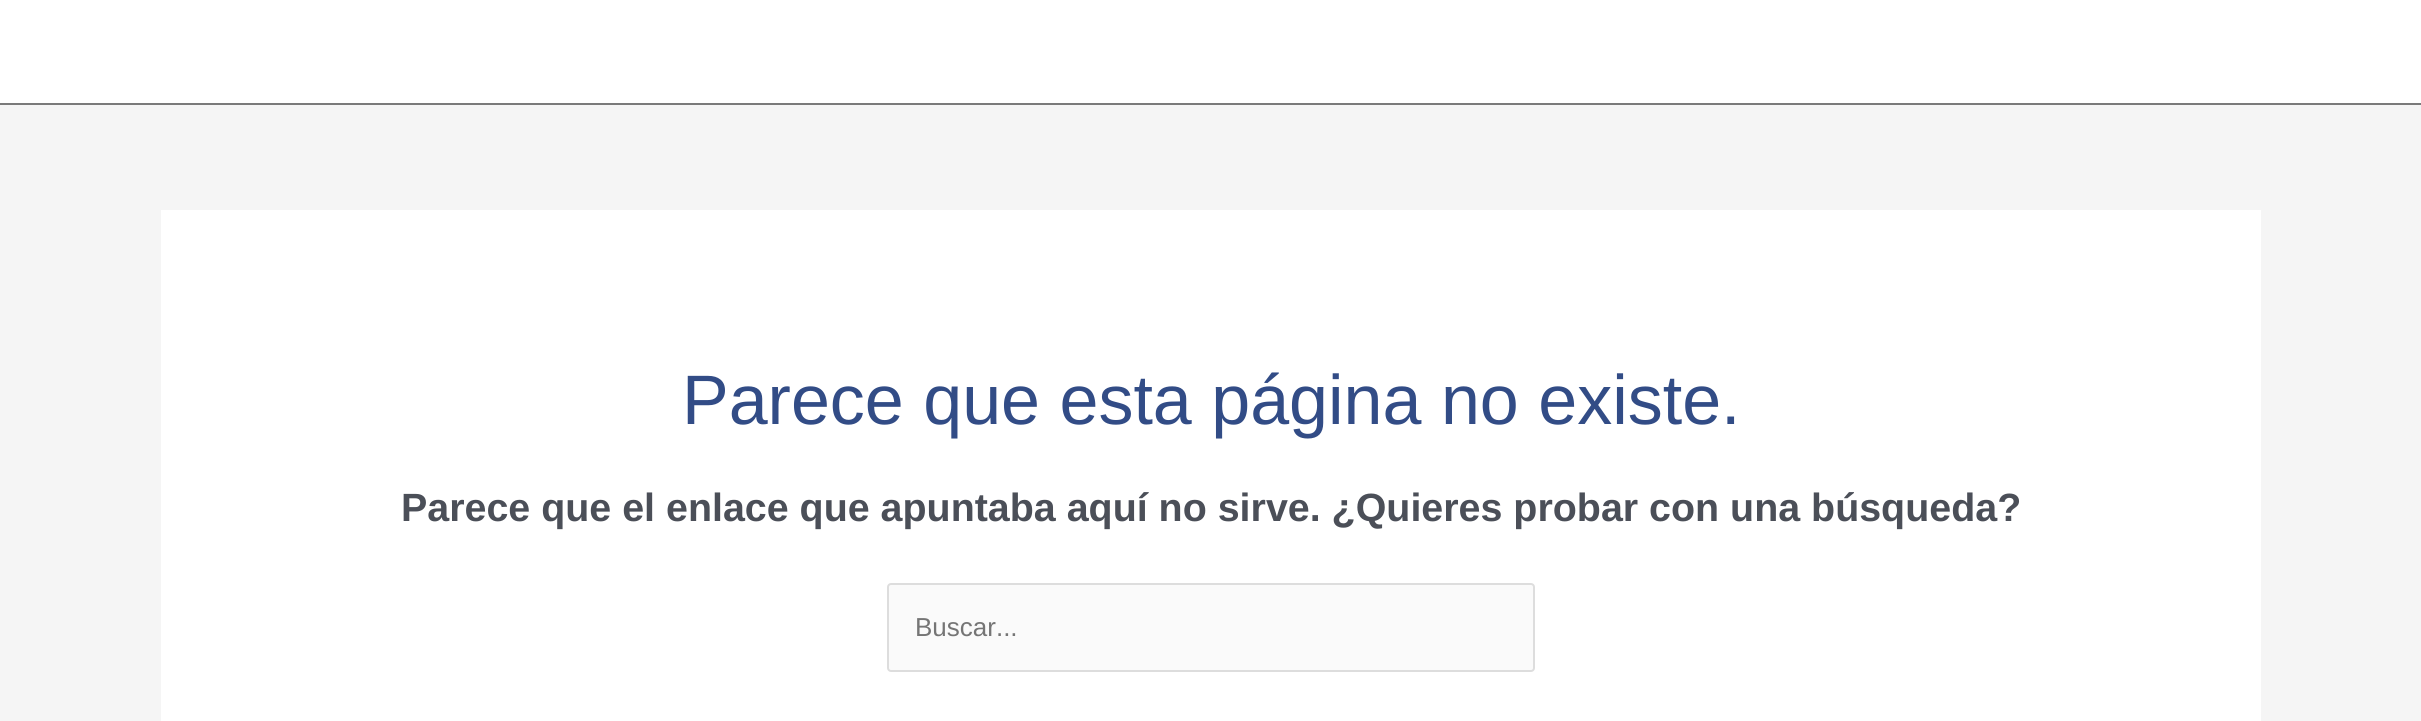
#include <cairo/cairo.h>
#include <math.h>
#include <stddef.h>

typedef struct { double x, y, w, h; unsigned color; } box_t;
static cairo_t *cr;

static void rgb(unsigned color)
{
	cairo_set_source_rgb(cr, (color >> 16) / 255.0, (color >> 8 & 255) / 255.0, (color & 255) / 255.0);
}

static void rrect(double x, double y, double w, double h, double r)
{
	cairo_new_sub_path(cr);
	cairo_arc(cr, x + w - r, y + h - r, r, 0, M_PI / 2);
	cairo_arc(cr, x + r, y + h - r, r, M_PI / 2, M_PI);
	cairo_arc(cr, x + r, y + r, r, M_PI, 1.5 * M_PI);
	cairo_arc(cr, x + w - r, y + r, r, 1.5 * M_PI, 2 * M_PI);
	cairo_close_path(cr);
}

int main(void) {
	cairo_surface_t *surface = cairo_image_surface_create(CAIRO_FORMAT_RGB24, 2421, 721);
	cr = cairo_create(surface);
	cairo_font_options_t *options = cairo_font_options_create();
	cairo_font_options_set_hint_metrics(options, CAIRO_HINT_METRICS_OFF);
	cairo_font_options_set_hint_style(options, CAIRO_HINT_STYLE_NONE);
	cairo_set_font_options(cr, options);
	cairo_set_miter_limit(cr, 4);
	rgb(0xf5f5f5);
	cairo_paint(cr);
	{
		static const box_t items[] = {
			{0, 0, 2421, 103, 0xffffff},
			{0, 103, 2421, 2, 0x7a7a7a},
			{161, 210, 2100, 511, 0xffffff},
		};
		for (size_t i = 0; i < sizeof items / sizeof *items; i++) {
			rgb(items[i].color);
			cairo_rectangle(cr, items[i].x, items[i].y, items[i].w, items[i].h);
			cairo_fill(cr);
		}
	}
	rgb(0xfafafa);
	rrect(888, 584, 646, 87, 3);
	cairo_fill_preserve(cr);
	rgb(0xdddddd);
	cairo_stroke(cr);
	cairo_select_font_face(cr, "Liberation Sans", CAIRO_FONT_SLANT_NORMAL, CAIRO_FONT_WEIGHT_NORMAL);
	cairo_set_font_size(cr, 70);
	rgb(0x324c86);
	cairo_move_to(cr, 682, 424);
	cairo_show_text(cr, "Parece que esta página no existe.");
	cairo_select_font_face(cr, "Liberation Sans", CAIRO_FONT_SLANT_NORMAL, CAIRO_FONT_WEIGHT_BOLD);
	cairo_set_font_size(cr, 39.4);
	rgb(0x4b4f58);
	cairo_move_to(cr, 401, 521);
	cairo_show_text(cr, "Parece que el enlace que apuntaba aquí no sirve. ¿Quieres probar con una búsqueda?");
	cairo_select_font_face(cr, "Liberation Sans", CAIRO_FONT_SLANT_NORMAL, CAIRO_FONT_WEIGHT_NORMAL);
	cairo_set_font_size(cr, 26);
	rgb(0x757575);
	cairo_move_to(cr, 915, 636);
	cairo_show_text(cr, "Buscar...");
	cairo_surface_write_to_png(surface, "page.png");
	cairo_font_options_destroy(options);
	cairo_destroy(cr);
	cairo_surface_destroy(surface);
	return 0;
}
